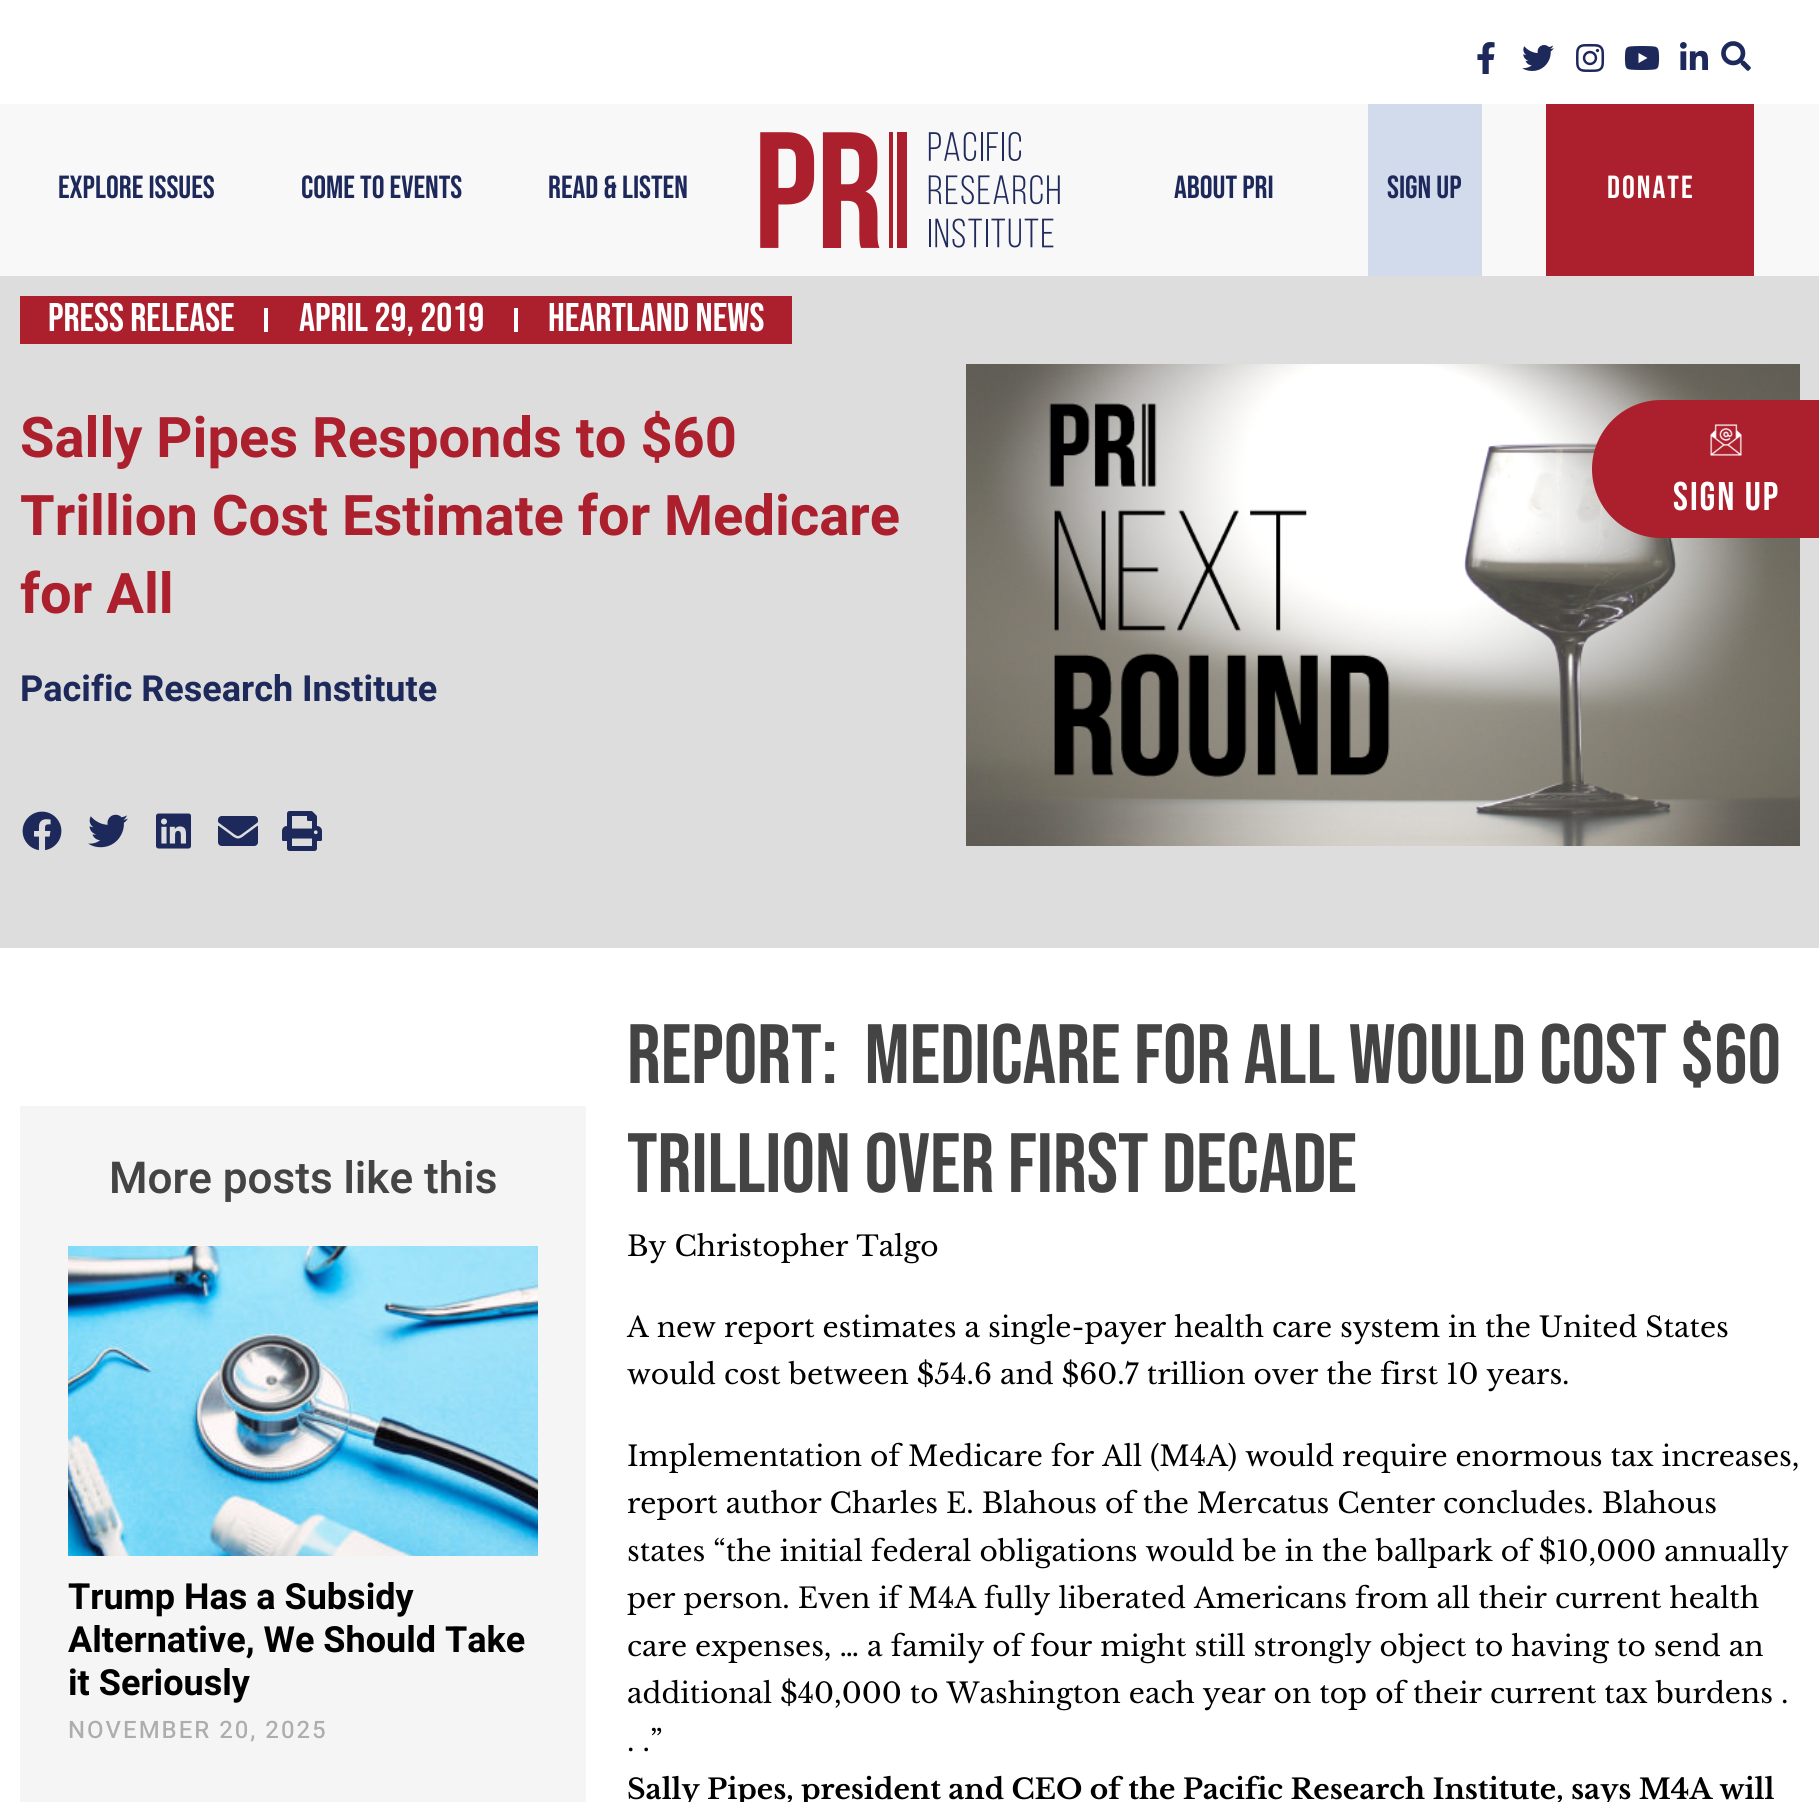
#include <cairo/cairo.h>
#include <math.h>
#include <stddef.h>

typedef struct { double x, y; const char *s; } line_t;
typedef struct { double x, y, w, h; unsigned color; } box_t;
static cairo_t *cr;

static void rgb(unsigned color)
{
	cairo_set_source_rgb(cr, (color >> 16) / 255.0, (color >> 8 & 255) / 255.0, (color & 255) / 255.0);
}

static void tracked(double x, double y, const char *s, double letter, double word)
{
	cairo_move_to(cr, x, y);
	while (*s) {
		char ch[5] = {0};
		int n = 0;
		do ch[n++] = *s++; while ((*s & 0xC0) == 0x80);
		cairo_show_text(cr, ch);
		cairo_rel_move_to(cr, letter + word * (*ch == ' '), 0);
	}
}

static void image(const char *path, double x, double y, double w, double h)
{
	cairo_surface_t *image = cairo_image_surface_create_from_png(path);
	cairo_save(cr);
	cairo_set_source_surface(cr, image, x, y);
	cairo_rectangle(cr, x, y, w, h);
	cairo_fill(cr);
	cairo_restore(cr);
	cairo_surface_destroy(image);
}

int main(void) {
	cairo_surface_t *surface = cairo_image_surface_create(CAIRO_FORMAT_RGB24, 1819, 1802);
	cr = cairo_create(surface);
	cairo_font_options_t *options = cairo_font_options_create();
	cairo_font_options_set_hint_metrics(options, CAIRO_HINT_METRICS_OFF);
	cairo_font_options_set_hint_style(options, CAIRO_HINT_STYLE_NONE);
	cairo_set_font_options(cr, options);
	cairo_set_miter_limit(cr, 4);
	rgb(0xffffff);
	cairo_paint(cr);
	image("img/1.png", 1477, 42, 18, 32);
	image("img/2.png", 1522, 45, 32, 26);
	image("img/3.png", 1576, 43, 29, 29);
	image("img/4.png", 1624, 46, 36, 24);
	image("img/5.png", 1680, 42, 28, 28);
	image("img/6.png", 1721, 41, 30, 30);
	rgb(0xf8f8f8);
	cairo_rectangle(cr, 0, 104, 1819, 172);
	cairo_fill(cr);
	image("img/7.png", 760, 132, 300, 116);
	{
		static const box_t items[] = {
			{1368, 104, 114, 172, 0xd2dbec},
			{1546, 104, 208, 172, 0xac1f2d},
			{0, 276, 1819, 672, 0xdddddd},
		};
		for (size_t i = 0; i < sizeof items / sizeof *items; i++) {
			rgb(items[i].color);
			cairo_rectangle(cr, items[i].x, items[i].y, items[i].w, items[i].h);
			cairo_fill(cr);
		}
	}
	image("img/14.png", 966, 364, 834, 482);
	rgb(0xac1f2d);
	cairo_new_path(cr);
	cairo_move_to(cr, 1661, 400);
	cairo_line_to(cr, 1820, 400);
	cairo_line_to(cr, 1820, 538);
	cairo_line_to(cr, 1661, 538);
	cairo_curve_to(cr, 1623, 538, 1592, 507, 1592, 469);
	cairo_curve_to(cr, 1592, 431, 1623, 400, 1661, 400);
	cairo_close_path(cr);
	cairo_fill(cr);
	image("img/8.png", 1710, 424, 32, 32);
	{
		static const box_t items[] = {
			{20, 296, 772, 48, 0xac1f2d},
			{264, 308, 4, 24, 0xffffff},
			{514, 308, 4, 24, 0xffffff},
		};
		for (size_t i = 0; i < sizeof items / sizeof *items; i++) {
			rgb(items[i].color);
			cairo_rectangle(cr, items[i].x, items[i].y, items[i].w, items[i].h);
			cairo_fill(cr);
		}
	}
	image("img/9.png", 22, 811, 40, 40);
	image("img/10.png", 88, 814, 40, 34);
	image("img/11.png", 156, 813, 35, 36);
	image("img/12.png", 218, 816, 40, 30);
	image("img/13.png", 282, 811, 40, 40);
	rgb(0xf5f5f5);
	cairo_rectangle(cr, 20, 1106, 566, 696);
	cairo_fill(cr);
	image("img/15.png", 68, 1246, 470, 310);
	cairo_select_font_face(cr, "Bebas Neue", CAIRO_FONT_SLANT_NORMAL, CAIRO_FONT_WEIGHT_NORMAL);
	cairo_set_font_size(cr, 32);
	rgb(0x1e295b);
	{
		static const line_t items[] = {
			{58, 198, "Explore Issues"},
			{301, 198, "Come to Events"},
			{548, 198, "Read & Listen"},
			{1174, 198, "About PRI"},
			{1387, 198, "Sign Up"},
		};
		for (size_t i = 0; i < sizeof items / sizeof *items; i++) {
			cairo_move_to(cr, items[i].x, items[i].y);
			cairo_show_text(cr, items[i].s);
		}
	}
	rgb(0xffffff);
	tracked(1607, 198, "Donate", 2, 0);
	cairo_set_font_size(cr, 40);
	tracked(1673, 510, "Sign Up", 2, 0);
	{
		static const line_t items[] = {
			{48, 331, "Press Release"},
			{299, 331, "April 29, 2019"},
			{548, 331, "Heartland News"},
		};
		for (size_t i = 0; i < sizeof items / sizeof *items; i++) {
			cairo_move_to(cr, items[i].x, items[i].y);
			cairo_show_text(cr, items[i].s);
		}
	}
	cairo_select_font_face(cr, "Heebo", CAIRO_FONT_SLANT_NORMAL, CAIRO_FONT_WEIGHT_BOLD);
	cairo_set_font_size(cr, 56);
	rgb(0xac1f2d);
	{
		static const line_t items[] = {
			{20, 457, "Sally Pipes Responds to $60"},
			{20, 535, "Trillion Cost Estimate for Medicare"},
			{20, 613, "for All"},
		};
		for (size_t i = 0; i < sizeof items / sizeof *items; i++) {
			cairo_move_to(cr, items[i].x, items[i].y);
			cairo_show_text(cr, items[i].s);
		}
	}
	cairo_set_font_size(cr, 36);
	rgb(0x1e295b);
	cairo_move_to(cr, 20, 701);
	cairo_show_text(cr, "Pacific Research Institute");
	cairo_select_font_face(cr, "Heebo SemiBold", CAIRO_FONT_SLANT_NORMAL, CAIRO_FONT_WEIGHT_NORMAL);
	cairo_set_font_size(cr, 44);
	rgb(0x444444);
	cairo_move_to(cr, 109, 1193);
	cairo_show_text(cr, "More posts like this");
	cairo_select_font_face(cr, "Heebo", CAIRO_FONT_SLANT_NORMAL, CAIRO_FONT_WEIGHT_BOLD);
	cairo_set_font_size(cr, 36);
	rgb(0x000000);
	{
		static const line_t items[] = {
			{68, 1609, "Trump Has a Subsidy"},
			{68, 1652, "Alternative, We Should Take"},
			{68, 1695, "it Seriously"},
		};
		for (size_t i = 0; i < sizeof items / sizeof *items; i++) {
			cairo_move_to(cr, items[i].x, items[i].y);
			cairo_show_text(cr, items[i].s);
		}
	}
	cairo_select_font_face(cr, "Heebo Medium", CAIRO_FONT_SLANT_NORMAL, CAIRO_FONT_WEIGHT_NORMAL);
	cairo_set_font_size(cr, 24);
	rgb(0xadadad);
	tracked(68, 1738, "NOVEMBER 20, 2025", 2, 0);
	cairo_select_font_face(cr, "Bebas Neue", CAIRO_FONT_SLANT_NORMAL, CAIRO_FONT_WEIGHT_NORMAL);
	cairo_set_font_size(cr, 84);
	rgb(0x444444);
	cairo_move_to(cr, 627, 1083);
	cairo_show_text(cr, "Report:  Medicare for All Would Cost $60");
	cairo_move_to(cr, 627, 1192);
	cairo_show_text(cr, "Trillion Over First Decade");
	cairo_select_font_face(cr, "Libre Baskerville", CAIRO_FONT_SLANT_NORMAL, CAIRO_FONT_WEIGHT_NORMAL);
	cairo_set_font_size(cr, 28);
	rgb(0x000000);
	{
		static const line_t items[] = {
			{627, 1256, "By Christopher Talgo"},
			{627, 1337, "A new report estimates a single-payer health care system in the United States"},
			{627, 1384, "would cost between $54.6 and $60.7 trillion over the first 10 years."},
			{627, 1466, "Implementation of Medicare for All (M4A) would require enormous tax increases,"},
			{627, 1513, "report author Charles E. Blahous of the Mercatus Center concludes. Blahous"},
			{627, 1561, "states “the initial federal obligations would be in the ballpark of $10,000 annually"},
			{627, 1608, "per person. Even if M4A fully liberated Americans from all their current health"},
			{627, 1656, "care expenses, … a family of four might still strongly object to having to send an"},
			{627, 1703, "additional $40,000 to Washington each year on top of their current tax burdens ."},
			{627, 1751, ". .”"},
		};
		for (size_t i = 0; i < sizeof items / sizeof *items; i++) {
			cairo_move_to(cr, items[i].x, items[i].y);
			cairo_show_text(cr, items[i].s);
		}
	}
	cairo_select_font_face(cr, "Libre Baskerville", CAIRO_FONT_SLANT_NORMAL, CAIRO_FONT_WEIGHT_BOLD);
	cairo_move_to(cr, 627, 1799);
	cairo_show_text(cr, "Sally Pipes, president and CEO of the Pacific Research Institute, says M4A will");
	cairo_surface_write_to_png(surface, "page.png");
	cairo_font_options_destroy(options);
	cairo_destroy(cr);
	cairo_surface_destroy(surface);
	return 0;
}
